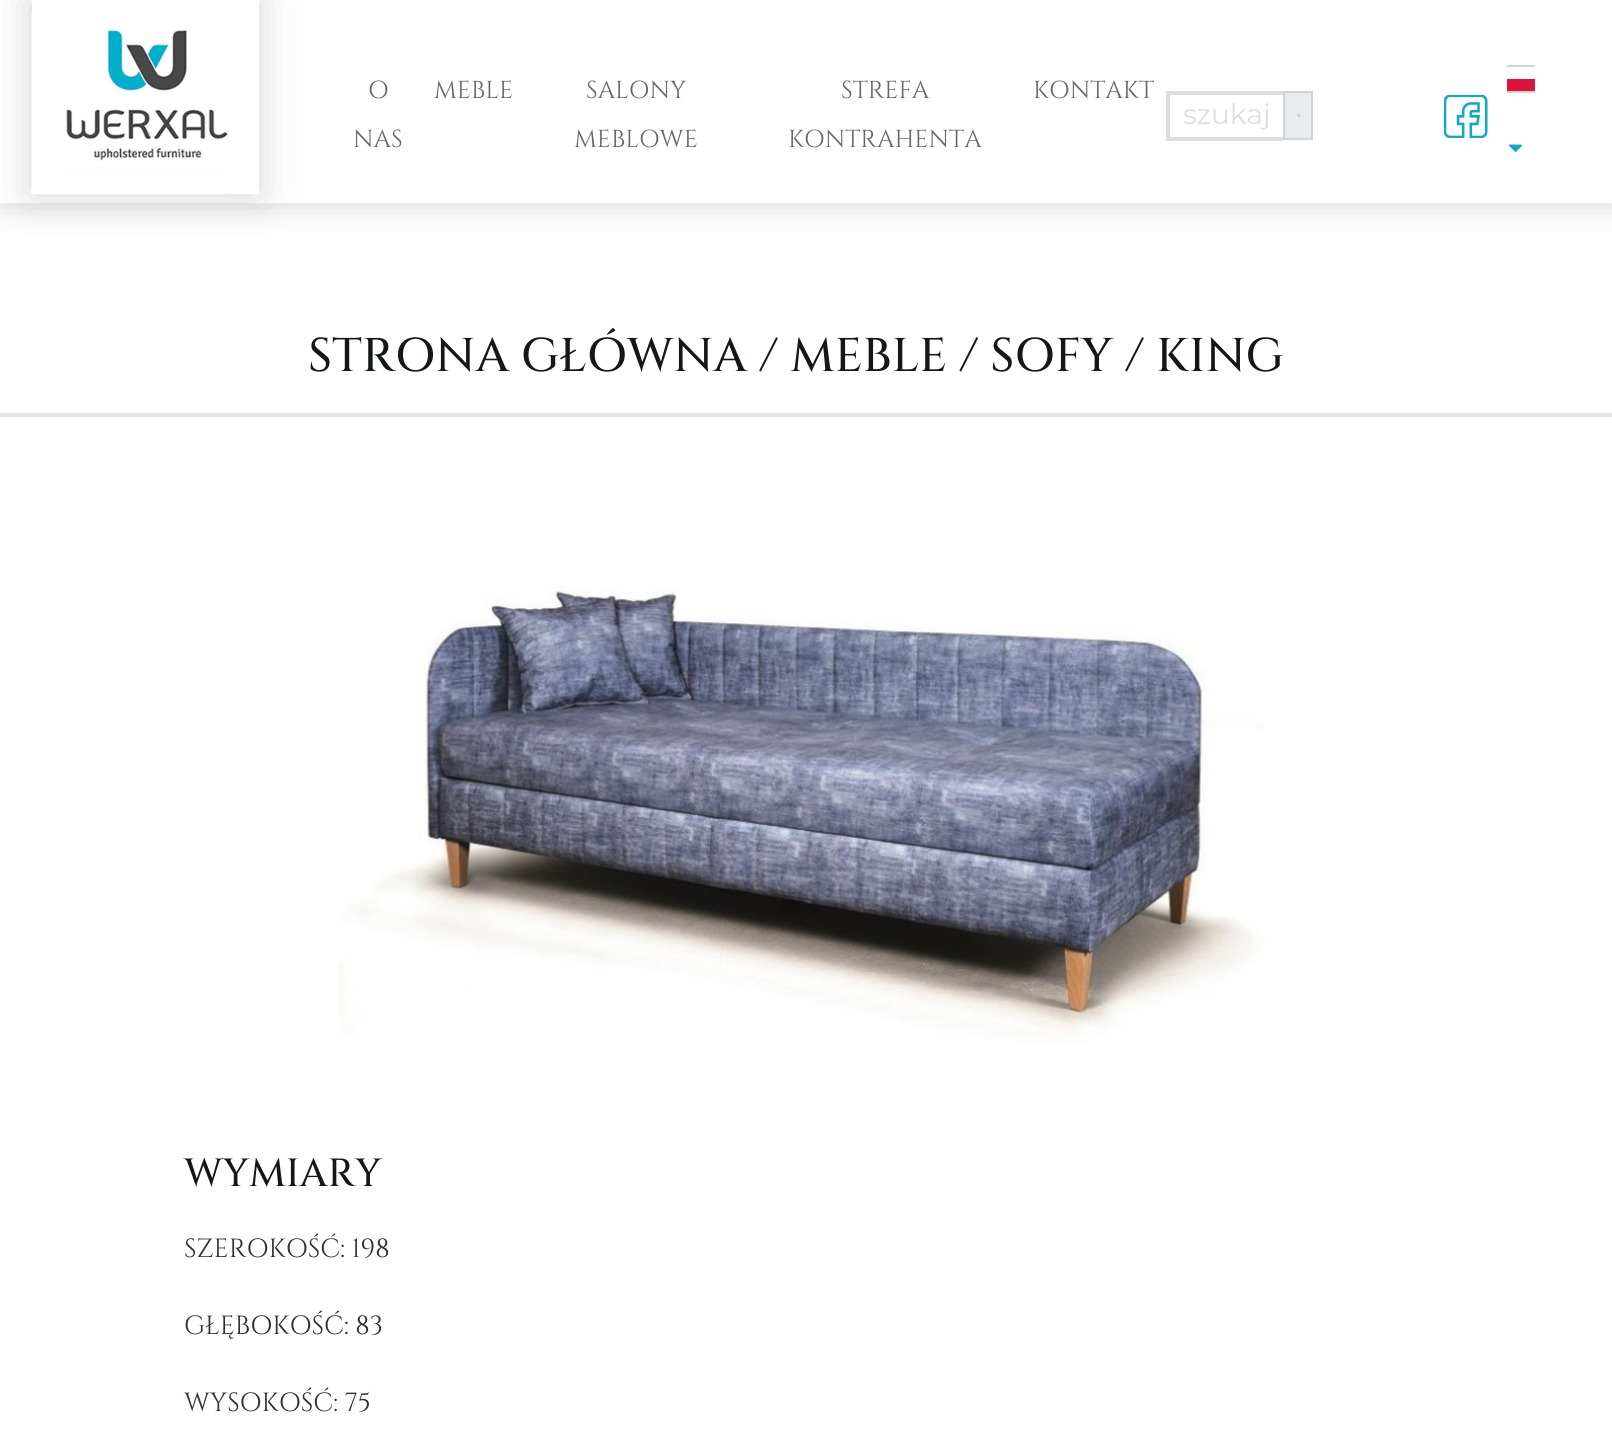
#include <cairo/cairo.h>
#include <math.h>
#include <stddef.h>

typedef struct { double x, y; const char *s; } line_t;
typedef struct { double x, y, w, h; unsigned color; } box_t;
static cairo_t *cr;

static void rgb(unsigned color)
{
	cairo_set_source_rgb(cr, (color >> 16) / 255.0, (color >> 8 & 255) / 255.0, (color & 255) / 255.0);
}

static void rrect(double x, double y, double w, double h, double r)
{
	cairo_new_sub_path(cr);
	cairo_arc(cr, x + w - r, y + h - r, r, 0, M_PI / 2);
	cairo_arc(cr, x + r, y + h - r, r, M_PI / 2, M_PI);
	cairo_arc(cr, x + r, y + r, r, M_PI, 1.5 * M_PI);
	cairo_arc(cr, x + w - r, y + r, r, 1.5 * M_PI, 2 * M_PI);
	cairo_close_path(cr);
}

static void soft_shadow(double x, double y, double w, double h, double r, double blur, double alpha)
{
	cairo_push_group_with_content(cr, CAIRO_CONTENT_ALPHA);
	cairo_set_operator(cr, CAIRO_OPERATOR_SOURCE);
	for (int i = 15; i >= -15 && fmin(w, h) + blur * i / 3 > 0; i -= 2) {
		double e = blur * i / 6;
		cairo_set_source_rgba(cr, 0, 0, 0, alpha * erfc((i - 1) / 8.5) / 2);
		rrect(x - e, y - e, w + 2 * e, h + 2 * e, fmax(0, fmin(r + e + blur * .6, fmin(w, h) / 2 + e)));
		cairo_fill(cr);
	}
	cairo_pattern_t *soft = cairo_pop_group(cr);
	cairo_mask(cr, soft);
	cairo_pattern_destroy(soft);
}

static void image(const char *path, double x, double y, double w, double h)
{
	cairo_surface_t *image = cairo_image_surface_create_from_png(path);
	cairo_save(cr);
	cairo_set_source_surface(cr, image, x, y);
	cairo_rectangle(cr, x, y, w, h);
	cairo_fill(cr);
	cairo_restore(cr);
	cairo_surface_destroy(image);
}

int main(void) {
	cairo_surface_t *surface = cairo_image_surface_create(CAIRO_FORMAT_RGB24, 1612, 1449);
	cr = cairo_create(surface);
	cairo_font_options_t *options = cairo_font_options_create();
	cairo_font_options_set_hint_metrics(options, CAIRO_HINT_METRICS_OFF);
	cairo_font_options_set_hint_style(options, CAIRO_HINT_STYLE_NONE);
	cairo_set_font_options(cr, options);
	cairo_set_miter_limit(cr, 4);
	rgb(0xffffff);
	cairo_paint(cr);
	cairo_save(cr);
	cairo_rectangle(cr, 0, 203, 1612, 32);
	cairo_clip(cr);
	rgb(0xdedede);
	soft_shadow(0, 5, 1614, 203, 0, 13, 1);
	cairo_restore(cr);
	cairo_save(cr);
	cairo_set_fill_rule(cr, CAIRO_FILL_RULE_EVEN_ODD);
	cairo_new_path(cr);
	cairo_move_to(cr, 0, 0);
	cairo_line_to(cr, 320, 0);
	cairo_line_to(cr, 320, 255);
	cairo_line_to(cr, 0, 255);
	cairo_close_path(cr);
	cairo_move_to(cr, 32, 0);
	cairo_line_to(cr, 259, 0);
	cairo_line_to(cr, 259, 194);
	cairo_line_to(cr, 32, 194);
	cairo_close_path(cr);
	cairo_clip(cr);
	rgb(0xa8a8a8);
	soft_shadow(32, 0, 227, 194, 0, 20, 0.5);
	cairo_restore(cr);
	image("img/1.png", 31, 13, 197, 182);
	{
		static const box_t items[] = {
			{1166, 91, 117, 4, 0xdedede},
			{1166, 137, 117, 4, 0xdedede},
			{1166, 91, 4, 49, 0xdedede},
		};
		for (size_t i = 0; i < sizeof items / sizeof *items; i++) {
			rgb(items[i].color);
			cairo_rectangle(cr, items[i].x, items[i].y, items[i].w, items[i].h);
			cairo_fill(cr);
		}
	}
	rgb(0xe9ecef);
	cairo_rectangle(cr, 1284, 92, 28, 47);
	cairo_fill_preserve(cr);
	rgb(0xced4da);
	cairo_stroke(cr);
	image("img/2.png", 1297, 114, 4, 4);
	image("img/3.png", 1444, 95, 44, 43);
	cairo_save(cr);
	cairo_rectangle(cr, 1507, 65, 28, 28);
	cairo_clip(cr);
	cairo_rectangle(cr, 1501, 66, 40, 26);
	rgb(0xd3d3d3);
	cairo_stroke(cr);
	cairo_restore(cr);
	rgb(0xdc143c);
	cairo_rectangle(cr, 1507, 79, 28, 12);
	cairo_fill(cr);
	image("img/4.png", 1509, 144, 13, 8);
	rgb(0xe6e6e6);
	cairo_rectangle(cr, 0, 413, 1612, 4);
	cairo_fill(cr);
	image("img/5.png", 338, 584, 927, 460);
	cairo_select_font_face(cr, "Cinzel", CAIRO_FONT_SLANT_NORMAL, CAIRO_FONT_WEIGHT_NORMAL);
	cairo_set_font_size(cr, 24.5);
	rgb(0x666666);
	{
		static const line_t items[] = {
			{368, 98, "O"},
			{353, 147, "NAS"},
			{434, 98, "MEBLE"},
			{586, 98, "SALONY"},
			{574, 147, "MEBLOWE"},
			{841, 98, "STREFA"},
			{788, 147, "KONTRAHENTA"},
			{1033, 98, "KONTAKT"},
		};
		for (size_t i = 0; i < sizeof items / sizeof *items; i++) {
			cairo_move_to(cr, items[i].x, items[i].y);
			cairo_show_text(cr, items[i].s);
		}
	}
	cairo_select_font_face(cr, "Montserrat", CAIRO_FONT_SLANT_NORMAL, CAIRO_FONT_WEIGHT_NORMAL);
	cairo_set_font_size(cr, 28);
	rgb(0xdedede);
	cairo_move_to(cr, 1183, 124);
	cairo_show_text(cr, "szukaj");
	cairo_select_font_face(cr, "Cinzel Medium", CAIRO_FONT_SLANT_NORMAL, CAIRO_FONT_WEIGHT_NORMAL);
	cairo_set_font_size(cr, 47.25);
	rgb(0x14171a);
	cairo_move_to(cr, 308, 371);
	cairo_show_text(cr, "STRONA GŁÓWNA / MEBLE / SOFY / KING");
	cairo_set_font_size(cr, 39.25);
	cairo_move_to(cr, 184, 1186);
	cairo_show_text(cr, "WYMIARY");
	cairo_select_font_face(cr, "Cinzel", CAIRO_FONT_SLANT_NORMAL, CAIRO_FONT_WEIGHT_NORMAL);
	cairo_set_font_size(cr, 26.25);
	rgb(0x313131);
	{
		static const line_t items[] = {
			{184, 1257, "SZEROKOŚĆ: 198"},
			{184, 1334, "GŁĘBOKOŚĆ: 83"},
			{184, 1411, "WYSOKOŚĆ: 75"},
		};
		for (size_t i = 0; i < sizeof items / sizeof *items; i++) {
			cairo_move_to(cr, items[i].x, items[i].y);
			cairo_show_text(cr, items[i].s);
		}
	}
	cairo_surface_write_to_png(surface, "page.png");
	cairo_font_options_destroy(options);
	cairo_destroy(cr);
	cairo_surface_destroy(surface);
	return 0;
}
